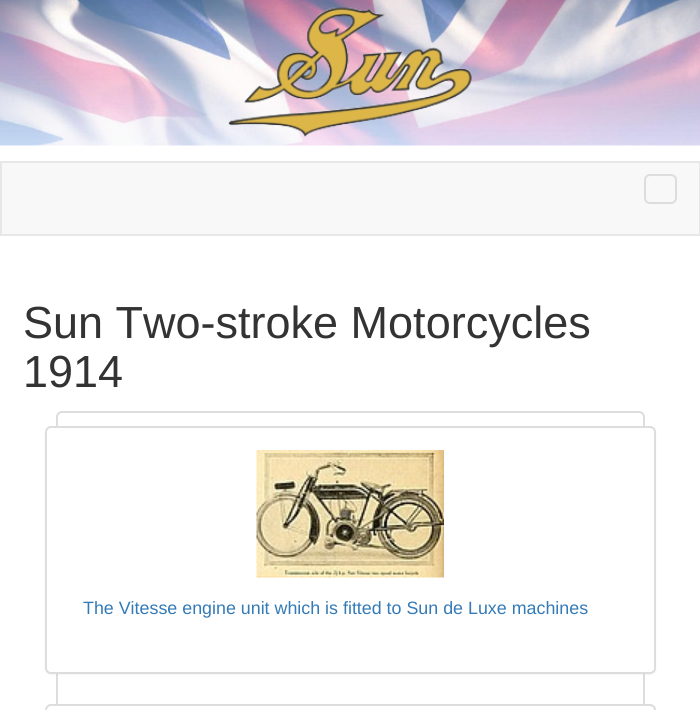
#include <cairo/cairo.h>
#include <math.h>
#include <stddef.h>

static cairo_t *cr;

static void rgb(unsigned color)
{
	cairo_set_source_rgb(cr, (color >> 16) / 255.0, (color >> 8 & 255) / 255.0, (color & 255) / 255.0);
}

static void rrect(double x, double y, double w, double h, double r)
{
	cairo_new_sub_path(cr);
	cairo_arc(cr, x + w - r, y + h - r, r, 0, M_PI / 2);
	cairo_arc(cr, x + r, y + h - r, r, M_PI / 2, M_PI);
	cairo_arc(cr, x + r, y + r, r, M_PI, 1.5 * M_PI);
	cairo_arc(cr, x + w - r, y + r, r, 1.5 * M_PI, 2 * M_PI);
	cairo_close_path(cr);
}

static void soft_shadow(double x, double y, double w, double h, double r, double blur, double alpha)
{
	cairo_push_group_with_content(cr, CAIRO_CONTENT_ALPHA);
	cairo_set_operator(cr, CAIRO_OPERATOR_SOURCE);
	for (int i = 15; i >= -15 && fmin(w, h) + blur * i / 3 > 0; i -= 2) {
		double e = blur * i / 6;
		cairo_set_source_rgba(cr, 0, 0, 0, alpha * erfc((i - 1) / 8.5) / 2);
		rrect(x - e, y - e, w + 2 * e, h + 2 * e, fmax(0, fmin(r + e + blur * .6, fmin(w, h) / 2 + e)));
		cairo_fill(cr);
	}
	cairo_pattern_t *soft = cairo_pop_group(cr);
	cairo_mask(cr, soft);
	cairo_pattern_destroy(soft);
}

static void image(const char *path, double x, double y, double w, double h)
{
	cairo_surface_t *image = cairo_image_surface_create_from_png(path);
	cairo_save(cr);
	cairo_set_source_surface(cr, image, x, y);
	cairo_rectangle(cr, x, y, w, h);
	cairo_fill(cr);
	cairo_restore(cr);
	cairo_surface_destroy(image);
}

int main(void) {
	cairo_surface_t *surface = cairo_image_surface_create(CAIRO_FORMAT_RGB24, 700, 710);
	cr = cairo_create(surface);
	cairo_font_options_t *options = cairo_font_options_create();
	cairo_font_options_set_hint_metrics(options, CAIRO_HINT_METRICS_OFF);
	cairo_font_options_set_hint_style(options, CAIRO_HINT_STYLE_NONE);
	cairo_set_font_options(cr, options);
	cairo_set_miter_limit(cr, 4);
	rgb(0xffffff);
	cairo_paint(cr);
	image("img/1.png", 0, 0, 700, 146);
	image("img/2.png", 228, 7, 244, 130);
	rgb(0xf8f8f8);
	cairo_rectangle(cr, 1, 162, 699, 73);
	cairo_fill_preserve(cr);
	rgb(0xe7e7e7);
	cairo_stroke(cr);
	rrect(645, 175, 31, 28, 5);
	rgb(0xdddddd);
	cairo_stroke(cr);
	rrect(57, 412, 587, 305, 5);
	cairo_stroke(cr);
	rgb(0x000000);
	soft_shadow(45, 428, 611, 247, 6, 1, 0.05);
	rgb(0xffffff);
	rrect(46, 427, 609, 246, 5);
	cairo_fill_preserve(cr);
	rgb(0xdddddd);
	cairo_stroke(cr);
	image("img/3.png", 256, 450, 188, 128);
	rgb(0xffffff);
	rrect(46, 705, 609, 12, 5);
	cairo_fill_preserve(cr);
	rgb(0xdddddd);
	cairo_stroke(cr);
	cairo_select_font_face(cr, "Liberation Sans", CAIRO_FONT_SLANT_NORMAL, CAIRO_FONT_WEIGHT_NORMAL);
	cairo_set_font_size(cr, 45);
	rgb(0x333333);
	cairo_move_to(cr, 23, 338);
	cairo_show_text(cr, "Sun Two-stroke Motorcycles");
	cairo_move_to(cr, 23, 387);
	cairo_show_text(cr, "1914");
	cairo_set_font_size(cr, 17.85);
	rgb(0x337ab7);
	cairo_move_to(cr, 83, 614);
	cairo_show_text(cr, "The Vitesse engine unit which is fitted to Sun de Luxe machines");
	cairo_surface_write_to_png(surface, "page.png");
	cairo_font_options_destroy(options);
	cairo_destroy(cr);
	cairo_surface_destroy(surface);
	return 0;
}
